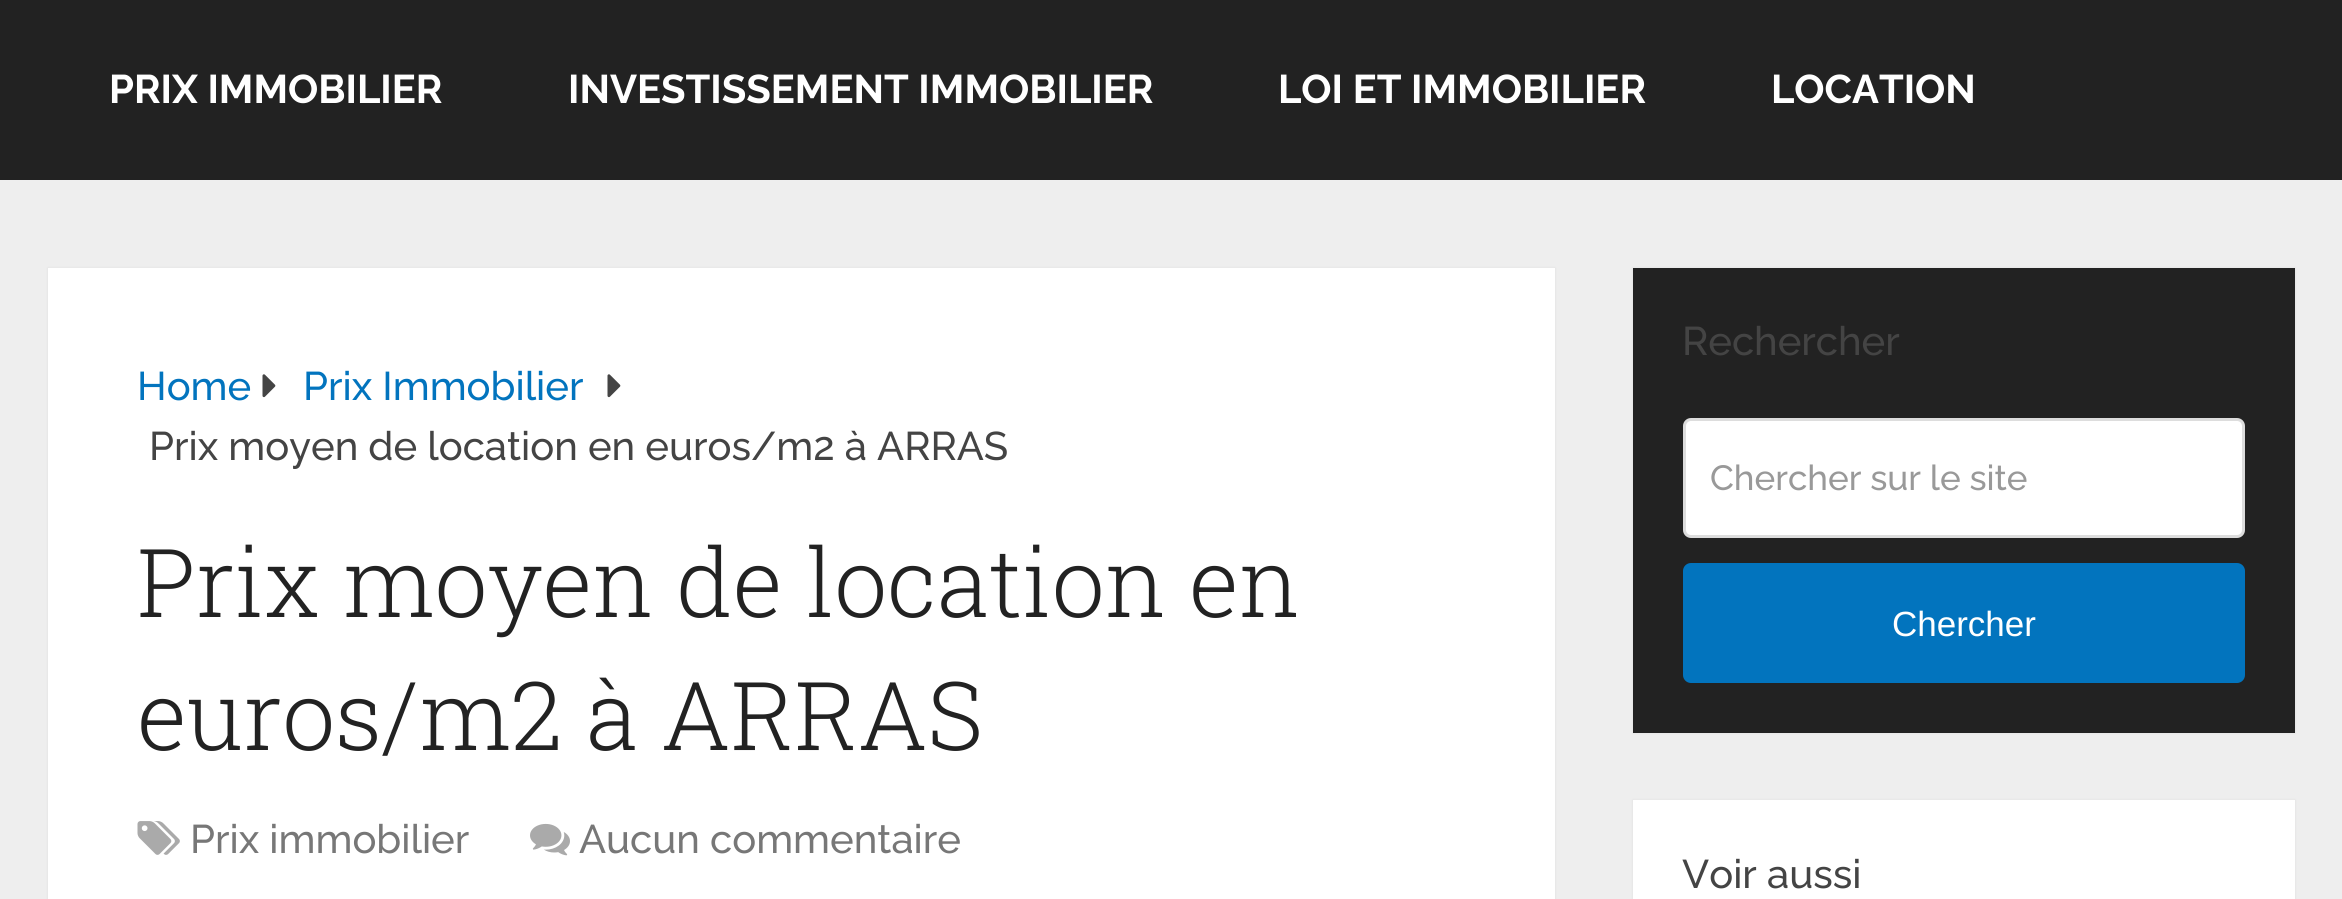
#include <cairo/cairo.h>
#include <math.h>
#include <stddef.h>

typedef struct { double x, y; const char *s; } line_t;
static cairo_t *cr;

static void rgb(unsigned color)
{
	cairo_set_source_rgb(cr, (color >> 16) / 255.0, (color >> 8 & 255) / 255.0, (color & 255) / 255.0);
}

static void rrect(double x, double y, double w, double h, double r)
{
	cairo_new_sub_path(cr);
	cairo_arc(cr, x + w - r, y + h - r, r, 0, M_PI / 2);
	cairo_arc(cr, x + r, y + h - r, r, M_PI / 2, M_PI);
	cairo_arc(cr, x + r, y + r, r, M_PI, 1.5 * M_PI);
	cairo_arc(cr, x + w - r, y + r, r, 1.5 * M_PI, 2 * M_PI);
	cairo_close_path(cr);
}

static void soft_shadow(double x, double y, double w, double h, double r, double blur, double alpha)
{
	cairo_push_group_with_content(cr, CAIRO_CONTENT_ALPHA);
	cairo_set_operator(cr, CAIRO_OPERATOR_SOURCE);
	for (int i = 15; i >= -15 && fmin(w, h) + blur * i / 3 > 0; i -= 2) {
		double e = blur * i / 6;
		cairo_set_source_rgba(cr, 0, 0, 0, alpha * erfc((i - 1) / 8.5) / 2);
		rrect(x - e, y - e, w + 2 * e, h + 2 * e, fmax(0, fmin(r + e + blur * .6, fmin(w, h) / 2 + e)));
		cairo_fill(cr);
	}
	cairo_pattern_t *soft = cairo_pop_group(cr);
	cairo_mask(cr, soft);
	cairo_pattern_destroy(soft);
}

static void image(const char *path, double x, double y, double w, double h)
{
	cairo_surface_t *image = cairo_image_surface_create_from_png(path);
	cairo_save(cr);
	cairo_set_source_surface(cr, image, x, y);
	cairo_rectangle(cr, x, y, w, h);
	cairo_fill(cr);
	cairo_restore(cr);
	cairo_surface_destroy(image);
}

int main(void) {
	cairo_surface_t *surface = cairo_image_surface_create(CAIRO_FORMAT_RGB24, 2342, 899);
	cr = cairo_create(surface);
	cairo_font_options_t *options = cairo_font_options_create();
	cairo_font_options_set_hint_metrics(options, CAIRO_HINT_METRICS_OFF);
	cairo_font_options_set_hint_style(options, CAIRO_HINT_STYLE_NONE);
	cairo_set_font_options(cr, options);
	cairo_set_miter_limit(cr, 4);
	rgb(0xeeeeee);
	cairo_paint(cr);
	rgb(0x222222);
	cairo_rectangle(cr, 0, 0, 2342, 180);
	cairo_fill(cr);
	rgb(0x323232);
	soft_shadow(48, 268, 1507, 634, 0, 1, 0.1);
	rgb(0xffffff);
	cairo_rectangle(cr, 48, 268, 1507, 631);
	cairo_fill(cr);
	image("img/1.png", 262, 374, 14, 24);
	image("img/1.png", 607, 374, 14, 24);
	image("img/2.png", 137, 821, 43, 34);
	image("img/3.png", 530, 823, 40, 33);
	rgb(0x323232);
	soft_shadow(1633, 268, 662, 465, 0, 1, 0.1);
	rgb(0x222222);
	cairo_rectangle(cr, 1633, 268, 662, 465);
	cairo_fill(cr);
	rgb(0xffffff);
	rrect(1684.5, 419.5, 559, 117, 6.5);
	cairo_fill_preserve(cr);
	rgb(0xdddddd);
	cairo_set_line_width(cr, 3);
	cairo_stroke(cr);
	rgb(0x0274be);
	rrect(1683, 563, 562, 120, 8);
	cairo_fill(cr);
	rgb(0x323232);
	soft_shadow(1633, 800, 662, 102, 0, 1, 0.1);
	rgb(0xffffff);
	cairo_rectangle(cr, 1633, 800, 662, 99);
	cairo_fill(cr);
	cairo_select_font_face(cr, "Raleway", CAIRO_FONT_SLANT_NORMAL, CAIRO_FONT_WEIGHT_BOLD);
	cairo_set_font_size(cr, 40);
	{
		static const line_t items[] = {
			{109, 103, "PRIX IMMOBILIER"},
			{568, 103, "INVESTISSEMENT IMMOBILIER"},
			{1278, 103, "LOI ET IMMOBILIER"},
			{1771, 103, "LOCATION"},
		};
		for (size_t i = 0; i < sizeof items / sizeof *items; i++) {
			cairo_move_to(cr, items[i].x, items[i].y);
			cairo_show_text(cr, items[i].s);
		}
	}
	cairo_select_font_face(cr, "Raleway Medium", CAIRO_FONT_SLANT_NORMAL, CAIRO_FONT_WEIGHT_NORMAL);
	rgb(0x0274be);
	cairo_move_to(cr, 137, 400);
	cairo_show_text(cr, "Home");
	cairo_move_to(cr, 303, 400);
	cairo_show_text(cr, "Prix Immobilier");
	rgb(0x444444);
	cairo_move_to(cr, 149, 460);
	cairo_show_text(cr, "Prix moyen de location en euros/m2 à ARRAS");
	cairo_select_font_face(cr, "Roboto Slab Light", CAIRO_FONT_SLANT_NORMAL, CAIRO_FONT_WEIGHT_NORMAL);
	cairo_set_font_size(cr, 95);
	rgb(0x222222);
	cairo_move_to(cr, 137, 617);
	cairo_show_text(cr, "Prix moyen de location en");
	cairo_move_to(cr, 137, 750);
	cairo_show_text(cr, "euros/m2 à ARRAS");
	cairo_select_font_face(cr, "Raleway Medium", CAIRO_FONT_SLANT_NORMAL, CAIRO_FONT_WEIGHT_NORMAL);
	cairo_set_font_size(cr, 40);
	rgb(0x777777);
	cairo_move_to(cr, 190, 853);
	cairo_show_text(cr, "Prix immobilier");
	cairo_move_to(cr, 579, 853);
	cairo_show_text(cr, "Aucun commentaire");
	rgb(0x444444);
	cairo_move_to(cr, 1682, 355);
	cairo_show_text(cr, "Rechercher");
	cairo_set_font_size(cr, 35);
	rgb(0x999999);
	cairo_move_to(cr, 1710, 490);
	cairo_show_text(cr, "Chercher sur le site");
	cairo_select_font_face(cr, "Liberation Sans", CAIRO_FONT_SLANT_NORMAL, CAIRO_FONT_WEIGHT_NORMAL);
	rgb(0xffffff);
	cairo_move_to(cr, 1892, 636);
	cairo_show_text(cr, "Chercher");
	cairo_select_font_face(cr, "Raleway Medium", CAIRO_FONT_SLANT_NORMAL, CAIRO_FONT_WEIGHT_NORMAL);
	cairo_set_font_size(cr, 40);
	rgb(0x444444);
	cairo_move_to(cr, 1682, 888);
	cairo_show_text(cr, "Voir aussi");
	cairo_surface_write_to_png(surface, "page.png");
	cairo_font_options_destroy(options);
	cairo_destroy(cr);
	cairo_surface_destroy(surface);
	return 0;
}
